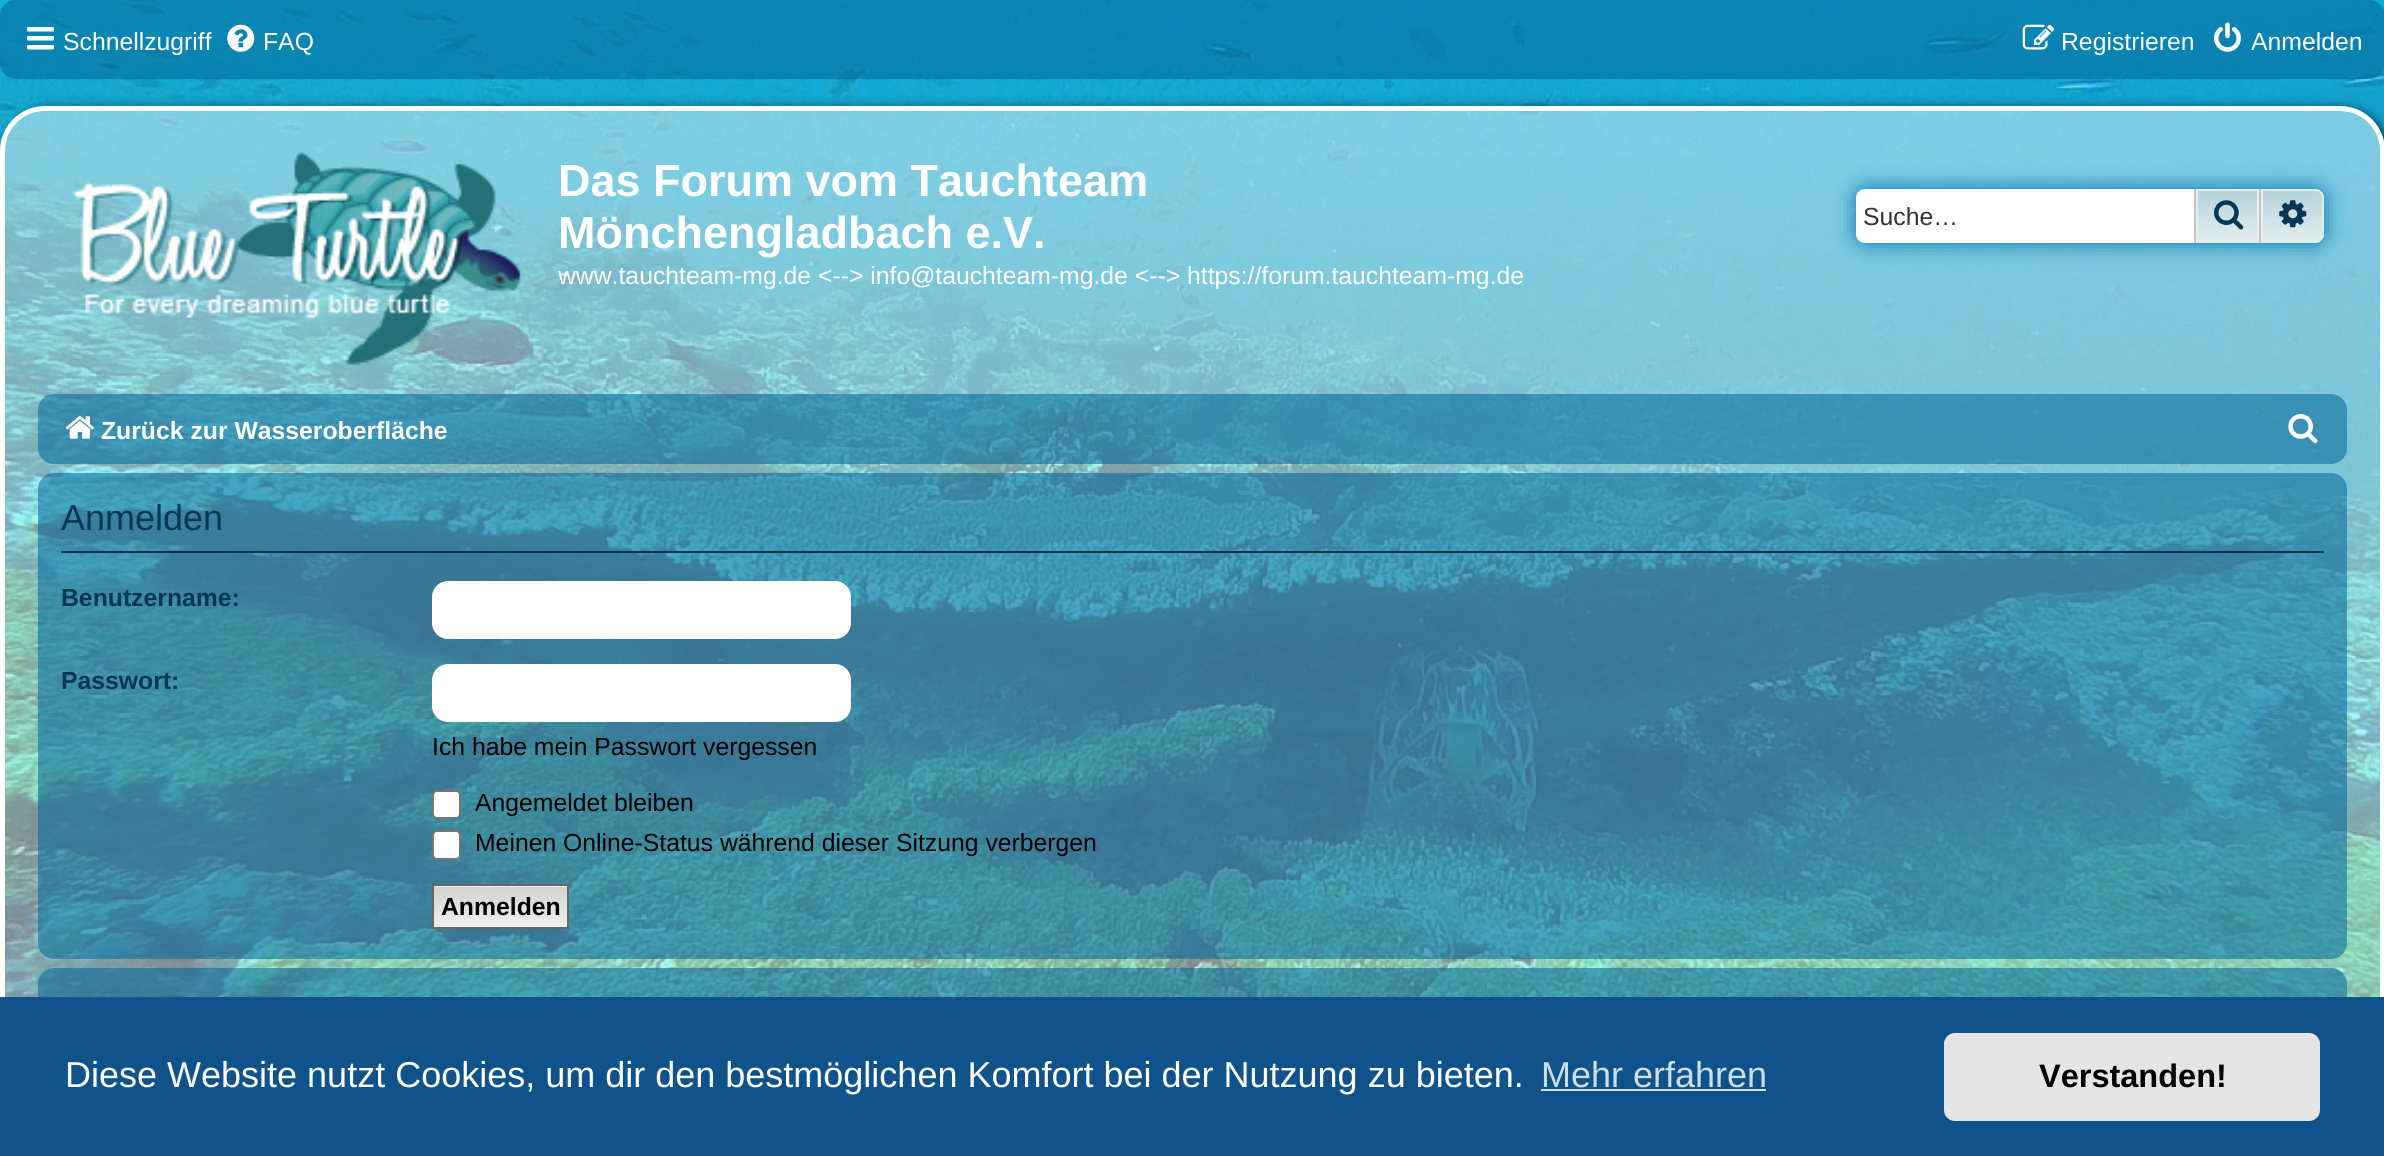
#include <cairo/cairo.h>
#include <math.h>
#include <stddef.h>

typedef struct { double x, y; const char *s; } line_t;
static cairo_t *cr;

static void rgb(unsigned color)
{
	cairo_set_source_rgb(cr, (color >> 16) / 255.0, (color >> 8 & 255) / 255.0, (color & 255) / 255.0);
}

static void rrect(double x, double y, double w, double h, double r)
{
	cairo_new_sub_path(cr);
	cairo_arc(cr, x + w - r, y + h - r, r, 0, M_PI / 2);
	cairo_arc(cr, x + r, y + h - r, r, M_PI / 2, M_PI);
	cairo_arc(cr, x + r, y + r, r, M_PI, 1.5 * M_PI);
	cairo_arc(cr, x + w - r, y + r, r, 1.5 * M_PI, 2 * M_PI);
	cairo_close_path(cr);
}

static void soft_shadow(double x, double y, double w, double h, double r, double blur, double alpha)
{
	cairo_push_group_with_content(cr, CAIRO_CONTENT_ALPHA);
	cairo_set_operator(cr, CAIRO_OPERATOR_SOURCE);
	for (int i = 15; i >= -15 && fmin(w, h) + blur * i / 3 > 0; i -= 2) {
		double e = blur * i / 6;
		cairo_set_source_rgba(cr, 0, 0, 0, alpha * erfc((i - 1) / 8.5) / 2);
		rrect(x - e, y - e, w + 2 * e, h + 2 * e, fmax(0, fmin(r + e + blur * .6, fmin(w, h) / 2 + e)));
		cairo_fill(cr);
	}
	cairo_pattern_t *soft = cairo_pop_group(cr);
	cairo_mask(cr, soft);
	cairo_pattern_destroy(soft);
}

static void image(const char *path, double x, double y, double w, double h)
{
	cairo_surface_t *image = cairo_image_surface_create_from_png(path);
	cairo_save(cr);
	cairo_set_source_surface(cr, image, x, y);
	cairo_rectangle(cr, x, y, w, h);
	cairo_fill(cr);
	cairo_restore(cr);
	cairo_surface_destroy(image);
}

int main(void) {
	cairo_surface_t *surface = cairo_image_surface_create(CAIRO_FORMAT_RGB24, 2384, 1156);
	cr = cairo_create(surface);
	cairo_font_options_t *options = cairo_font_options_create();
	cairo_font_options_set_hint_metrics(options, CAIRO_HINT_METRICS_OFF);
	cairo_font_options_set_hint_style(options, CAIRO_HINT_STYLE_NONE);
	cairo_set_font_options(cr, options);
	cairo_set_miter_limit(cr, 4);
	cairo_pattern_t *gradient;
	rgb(0xffffff);
	cairo_paint(cr);
	image("img/1.png", 0, 0, 2384, 997);
	cairo_set_source_rgba(cr, 0, 0.4, 0.6, 0.55);
	rrect(0, 0, 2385, 79, 16);
	cairo_fill(cr);
	image("img/2.png", 27, 27, 27, 23);
	image("img/3.png", 227, 24, 28, 28);
	image("img/4.png", 2022, 24, 33, 26);
	image("img/5.png", 2214, 22, 27, 30);
	cairo_save(cr);
	cairo_set_fill_rule(cr, CAIRO_FILL_RULE_EVEN_ODD);
	cairo_new_path(cr);
	cairo_move_to(cr, 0, 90);
	cairo_line_to(cr, 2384, 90);
	cairo_line_to(cr, 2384, 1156);
	cairo_line_to(cr, 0, 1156);
	cairo_close_path(cr);
	cairo_move_to(cr, 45, 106);
	cairo_line_to(cr, 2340, 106);
	cairo_curve_to(cr, 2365, 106, 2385, 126, 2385, 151);
	cairo_line_to(cr, 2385, 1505);
	cairo_curve_to(cr, 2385, 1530, 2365, 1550, 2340, 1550);
	cairo_line_to(cr, 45, 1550);
	cairo_curve_to(cr, 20, 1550, 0, 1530, 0, 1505);
	cairo_line_to(cr, 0, 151);
	cairo_curve_to(cr, 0, 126, 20, 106, 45, 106);
	cairo_close_path(cr);
	cairo_clip(cr);
	rgb(0x053754);
	soft_shadow(5, 108, 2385, 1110, 45, 5.5, 1);
	cairo_restore(cr);
	cairo_set_source_rgba(cr, 1, 1, 1, 0.45);
	rrect(2.5, 108.5, 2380, 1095, 42.5);
	cairo_fill_preserve(cr);
	rgb(0xffffff);
	cairo_set_line_width(cr, 5);
	cairo_stroke(cr);
	image("img/6.png", 72, 152, 449, 214);
	rgb(0x0075b0);
	soft_shadow(1856, 189, 468, 54, 9, 11, 1);
	rgb(0xffffff);
	cairo_new_path(cr);
	cairo_move_to(cr, 1865, 189);
	cairo_line_to(cr, 2194, 189);
	cairo_line_to(cr, 2194, 243);
	cairo_line_to(cr, 1865, 243);
	cairo_curve_to(cr, 1860, 243, 1856, 239, 1856, 234);
	cairo_line_to(cr, 1856, 198);
	cairo_curve_to(cr, 1856, 193, 1860, 189, 1865, 189);
	cairo_close_path(cr);
	cairo_fill(cr);
	gradient = cairo_pattern_create_linear(2228, 189, 2228, 243);
	cairo_pattern_add_color_stop_rgba(gradient, 0, 0.706, 0.82, 0.843, 1);
	cairo_pattern_add_color_stop_rgba(gradient, 1, 0.894, 0.937, 0.945, 1);
	cairo_set_source(cr, gradient);
	cairo_pattern_destroy(gradient);
	cairo_rectangle(cr, 2198, 191, 59, 50);
	cairo_fill(cr);
	cairo_rectangle(cr, 2197, 190, 61, 52);
	rgb(0xe4eff1);
	cairo_set_line_width(cr, 2);
	cairo_stroke(cr);
	rgb(0xc7c3bf);
	cairo_rectangle(cr, 2259, 189, 2, 54);
	cairo_fill(cr);
	cairo_rectangle(cr, 2194, 189, 2, 54);
	cairo_fill(cr);
	image("img/7.png", 2214, 200, 30, 30);
	gradient = cairo_pattern_create_linear(2293, 189, 2293, 243);
	cairo_pattern_add_color_stop_rgba(gradient, 0, 0.706, 0.82, 0.843, 1);
	cairo_pattern_add_color_stop_rgba(gradient, 1, 0.894, 0.937, 0.945, 1);
	cairo_set_source(cr, gradient);
	cairo_pattern_destroy(gradient);
	cairo_new_path(cr);
	cairo_move_to(cr, 2262, 190);
	cairo_line_to(cr, 2315, 190);
	cairo_curve_to(cr, 2319.5, 190, 2323, 193.5, 2323, 198);
	cairo_line_to(cr, 2323, 234);
	cairo_curve_to(cr, 2323, 238.5, 2319.5, 242, 2315, 242);
	cairo_line_to(cr, 2262, 242);
	cairo_close_path(cr);
	cairo_fill_preserve(cr);
	rgb(0xe4eff1);
	cairo_stroke(cr);
	image("img/8.png", 2279, 200, 28, 28);
	cairo_set_source_rgba(cr, 0, 0.4, 0.6, 0.55);
	rrect(38, 394, 2309, 70, 16);
	cairo_fill(cr);
	image("img/9.png", 65, 416, 29, 23);
	image("img/10.png", 2288, 414, 30, 30);
	rrect(38, 473, 2309, 486, 16);
	cairo_fill(cr);
	rgb(0x053754);
	cairo_rectangle(cr, 61, 551, 2263, 2);
	cairo_fill(cr);
	rgb(0xffffff);
	rrect(433, 582, 417, 56, 15);
	cairo_fill_preserve(cr);
	cairo_stroke(cr);
	rrect(433, 665, 417, 56, 15);
	cairo_fill_preserve(cr);
	cairo_stroke(cr);
	rrect(433, 791, 27, 27, 4);
	cairo_fill_preserve(cr);
	rgb(0x767676);
	cairo_stroke(cr);
	rgb(0xffffff);
	rrect(433, 831, 27, 28, 4);
	cairo_fill_preserve(cr);
	rgb(0x767676);
	cairo_stroke(cr);
	rgb(0xefefef);
	cairo_rectangle(cr, 434, 886, 133, 1);
	cairo_fill(cr);
	gradient = cairo_pattern_create_linear(501, 887, 501, 927);
	cairo_pattern_add_color_stop_rgba(gradient, 0, 0.824, 0.824, 0.824, 1);
	cairo_pattern_add_color_stop_rgba(gradient, 1, 0.937, 0.937, 0.937, 1);
	cairo_set_source(cr, gradient);
	cairo_pattern_destroy(gradient);
	cairo_rectangle(cr, 434, 887, 133, 40);
	cairo_fill(cr);
	cairo_rectangle(cr, 433, 885, 135, 43);
	rgb(0x666666);
	cairo_stroke(cr);
	cairo_set_source_rgba(cr, 0, 0.4, 0.6, 0.55);
	rrect(38, 968, 2309, 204, 16);
	cairo_fill(cr);
	rgb(0x0f538a);
	cairo_rectangle(cr, 0, 997, 2384, 159);
	cairo_fill(cr);
	rgb(0xcfdde8);
	cairo_rectangle(cr, 1541, 1089, 225, 2);
	cairo_fill(cr);
	rgb(0xe5e5e5);
	rrect(1944, 1033, 376, 88, 11);
	cairo_fill(cr);
	cairo_select_font_face(cr, "Liberation Sans", CAIRO_FONT_SLANT_NORMAL, CAIRO_FONT_WEIGHT_NORMAL);
	cairo_set_font_size(cr, 24.75);
	rgb(0xffffff);
	{
		static const line_t items[] = {
			{63, 50, "Schnellzugriff"},
			{263, 50, "FAQ"},
			{2061, 50, "Registrieren"},
			{2251, 50, "Anmelden"},
		};
		for (size_t i = 0; i < sizeof items / sizeof *items; i++) {
			cairo_move_to(cr, items[i].x, items[i].y);
			cairo_show_text(cr, items[i].s);
		}
	}
	cairo_select_font_face(cr, "Liberation Sans", CAIRO_FONT_SLANT_NORMAL, CAIRO_FONT_WEIGHT_BOLD);
	cairo_set_font_size(cr, 45);
	cairo_move_to(cr, 558, 196);
	cairo_show_text(cr, "Das Forum vom Tauchteam");
	cairo_move_to(cr, 558, 248);
	cairo_show_text(cr, "Mönchengladbach e.V.");
	cairo_select_font_face(cr, "Liberation Sans", CAIRO_FONT_SLANT_NORMAL, CAIRO_FONT_WEIGHT_NORMAL);
	cairo_set_font_size(cr, 24.75);
	cairo_move_to(cr, 558, 284);
	cairo_show_text(cr, "www.tauchteam-mg.de <--> info@tauchteam-mg.de <--> https://forum.tauchteam-mg.de");
	rgb(0x333333);
	cairo_move_to(cr, 1863, 225);
	cairo_show_text(cr, "Suche…");
	cairo_select_font_face(cr, "Liberation Sans", CAIRO_FONT_SLANT_NORMAL, CAIRO_FONT_WEIGHT_BOLD);
	rgb(0xffffff);
	cairo_move_to(cr, 101, 439);
	cairo_show_text(cr, "Zurück zur Wasseroberfläche");
	cairo_select_font_face(cr, "Liberation Sans", CAIRO_FONT_SLANT_NORMAL, CAIRO_FONT_WEIGHT_NORMAL);
	cairo_set_font_size(cr, 36);
	rgb(0x053754);
	cairo_move_to(cr, 61, 530);
	cairo_show_text(cr, "Anmelden");
	cairo_select_font_face(cr, "Liberation Sans", CAIRO_FONT_SLANT_NORMAL, CAIRO_FONT_WEIGHT_BOLD);
	cairo_set_font_size(cr, 24.75);
	cairo_move_to(cr, 61, 606);
	cairo_show_text(cr, "Benutzername:");
	cairo_move_to(cr, 61, 689);
	cairo_show_text(cr, "Passwort:");
	cairo_select_font_face(cr, "Liberation Sans", CAIRO_FONT_SLANT_NORMAL, CAIRO_FONT_WEIGHT_NORMAL);
	rgb(0x000000);
	{
		static const line_t items[] = {
			{432, 755, "Ich habe mein Passwort vergessen"},
			{475, 811, "Angemeldet bleiben"},
			{475, 851, "Meinen Online-Status während dieser Sitzung verbergen"},
		};
		for (size_t i = 0; i < sizeof items / sizeof *items; i++) {
			cairo_move_to(cr, items[i].x, items[i].y);
			cairo_show_text(cr, items[i].s);
		}
	}
	cairo_select_font_face(cr, "Liberation Sans", CAIRO_FONT_SLANT_NORMAL, CAIRO_FONT_WEIGHT_BOLD);
	cairo_move_to(cr, 441, 915);
	cairo_show_text(cr, "Anmelden");
	cairo_select_font_face(cr, "Liberation Sans", CAIRO_FONT_SLANT_NORMAL, CAIRO_FONT_WEIGHT_NORMAL);
	cairo_set_font_size(cr, 36);
	rgb(0xffffff);
	cairo_move_to(cr, 65, 1087);
	cairo_show_text(cr, "Diese Website nutzt Cookies, um dir den bestmöglichen Komfort bei der Nutzung zu bieten.");
	rgb(0xcfdde8);
	cairo_move_to(cr, 1541, 1087);
	cairo_show_text(cr, "Mehr erfahren");
	cairo_select_font_face(cr, "Liberation Sans", CAIRO_FONT_SLANT_NORMAL, CAIRO_FONT_WEIGHT_BOLD);
	cairo_set_font_size(cr, 32.5);
	rgb(0x000000);
	cairo_move_to(cr, 2039, 1087);
	cairo_show_text(cr, "Verstanden!");
	cairo_surface_write_to_png(surface, "page.png");
	cairo_font_options_destroy(options);
	cairo_destroy(cr);
	cairo_surface_destroy(surface);
	return 0;
}
